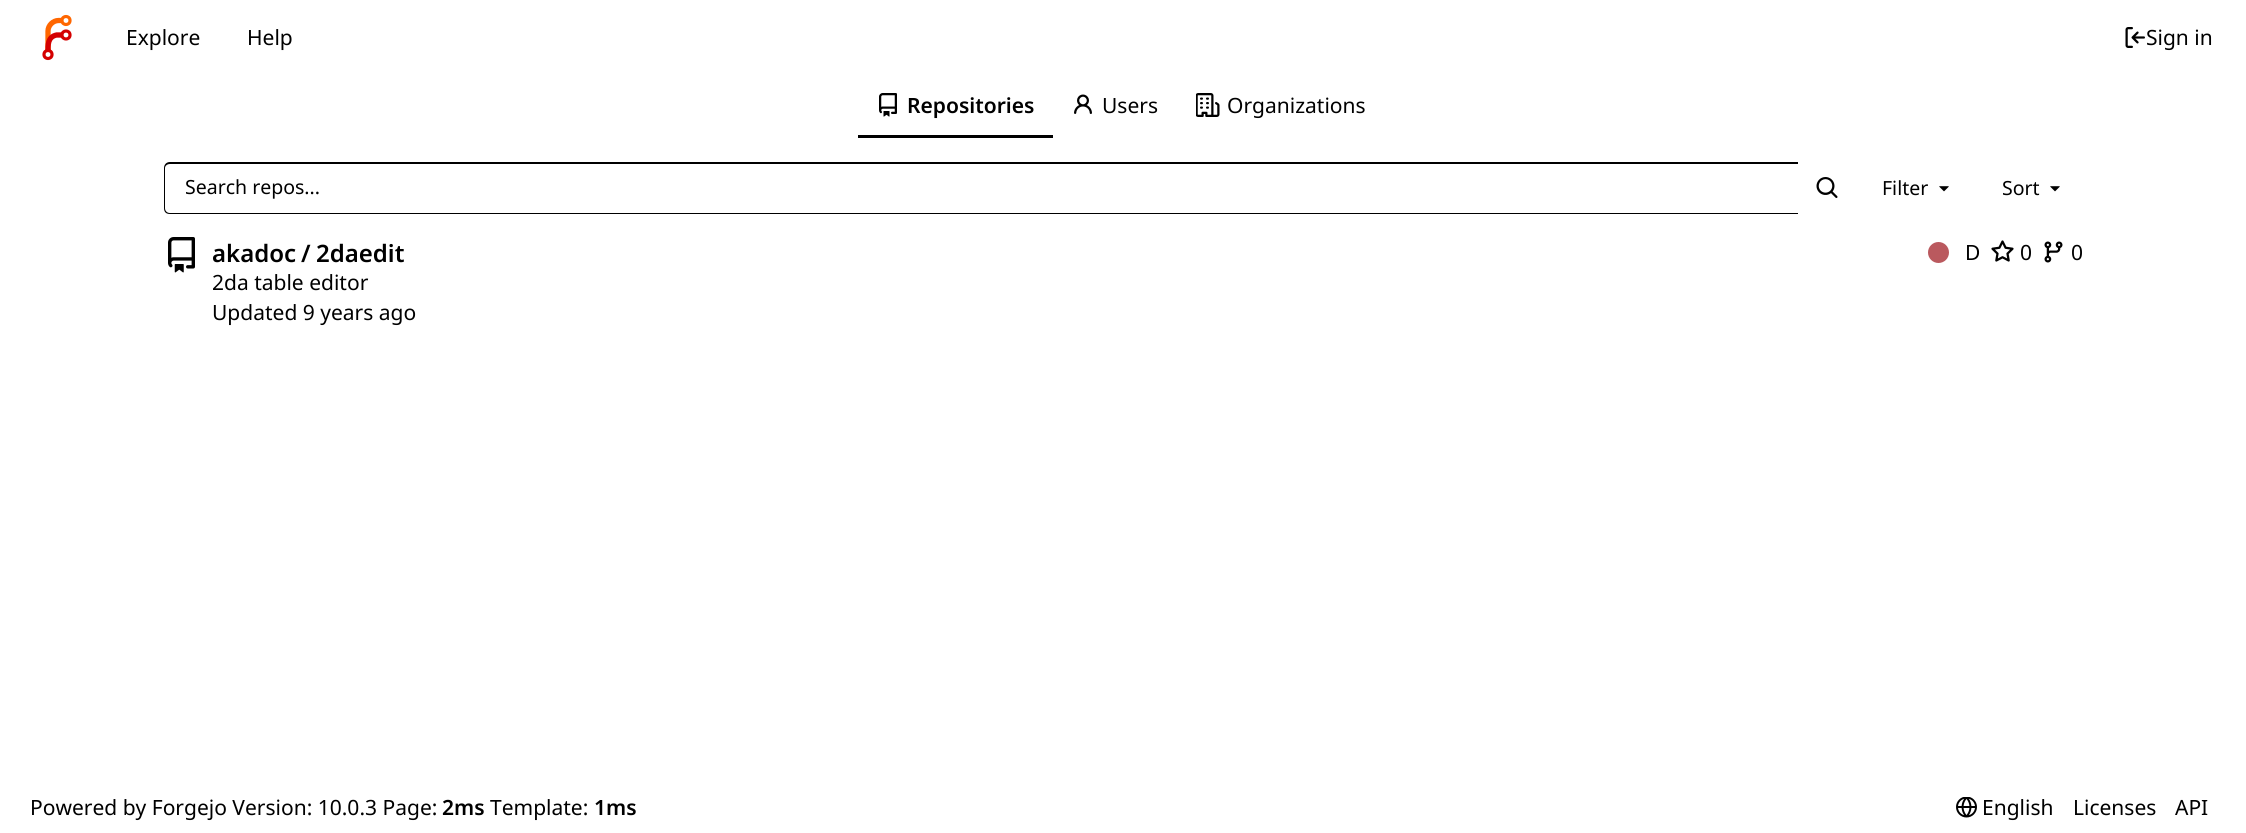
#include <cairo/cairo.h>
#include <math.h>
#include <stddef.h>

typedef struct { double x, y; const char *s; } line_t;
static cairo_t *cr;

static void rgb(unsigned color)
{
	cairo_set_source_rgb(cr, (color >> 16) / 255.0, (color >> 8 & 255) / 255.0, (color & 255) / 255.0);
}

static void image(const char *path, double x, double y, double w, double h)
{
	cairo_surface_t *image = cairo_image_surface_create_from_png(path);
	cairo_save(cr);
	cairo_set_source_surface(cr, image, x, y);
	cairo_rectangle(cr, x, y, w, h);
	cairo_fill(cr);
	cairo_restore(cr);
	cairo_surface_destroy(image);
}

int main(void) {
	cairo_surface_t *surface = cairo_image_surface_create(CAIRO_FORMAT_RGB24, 2246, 833);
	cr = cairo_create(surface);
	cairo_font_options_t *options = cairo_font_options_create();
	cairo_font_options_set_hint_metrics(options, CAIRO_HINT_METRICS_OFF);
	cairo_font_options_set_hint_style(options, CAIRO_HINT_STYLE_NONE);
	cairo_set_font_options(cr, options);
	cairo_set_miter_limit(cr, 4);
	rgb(0xffffff);
	cairo_paint(cr);
	cairo_new_path(cr);
	cairo_move_to(cr, 48, 52);
	cairo_line_to(cr, 48, 31);
	cairo_curve_to(cr, 48, 25.5, 53, 20.5, 58.5, 20.5);
	cairo_line_to(cr, 63, 20.5);
	rgb(0xff6600);
	cairo_set_line_width(cr, 5.3);
	cairo_stroke(cr);
	cairo_new_path(cr);
	cairo_move_to(cr, 48, 52);
	cairo_curve_to(cr, 48, 45, 47.5, 37, 56.5, 35);
	cairo_line_to(cr, 63, 35);
	rgb(0xd40000);
	cairo_stroke(cr);
	cairo_arc(cr, 66, 20.5, 4, 0, 2 * M_PI);
	rgb(0xff6600);
	cairo_set_line_width(cr, 3.2);
	cairo_stroke(cr);
	cairo_arc(cr, 66, 35, 4, 0, 2 * M_PI);
	rgb(0xd40000);
	cairo_stroke(cr);
	cairo_arc(cr, 48, 54.5, 4, 0, 2 * M_PI);
	cairo_stroke(cr);
	image("img/1.png", 2125, 27, 20, 21);
	rgb(0x000000);
	cairo_rectangle(cr, 858, 135, 195, 3);
	cairo_fill(cr);
	image("img/2.png", 879, 93, 18, 24);
	image("img/3.png", 1074, 94, 18, 20);
	image("img/4.png", 1196, 93, 24, 24);
	cairo_set_fill_rule(cr, CAIRO_FILL_RULE_EVEN_ODD);
	cairo_new_path(cr);
	cairo_move_to(cr, 170, 162);
	cairo_line_to(cr, 1798, 162);
	cairo_line_to(cr, 1798, 214);
	cairo_line_to(cr, 170, 214);
	cairo_curve_to(cr, 166, 214, 164, 212, 164, 208);
	cairo_line_to(cr, 164, 168);
	cairo_curve_to(cr, 164, 165, 166, 162, 170, 162);
	cairo_close_path(cr);
	cairo_move_to(cr, 170, 164);
	cairo_line_to(cr, 1798, 164);
	cairo_line_to(cr, 1798, 213);
	cairo_line_to(cr, 170, 213);
	cairo_curve_to(cr, 167, 213, 165, 211, 165, 208);
	cairo_line_to(cr, 165, 168);
	cairo_curve_to(cr, 165, 166, 167, 164, 170, 164);
	cairo_close_path(cr);
	cairo_fill(cr);
	image("img/5.png", 1816, 177, 22, 21);
	image("img/6.png", 1939, 186, 10, 6);
	image("img/6.png", 2050, 186, 10, 6);
	image("img/7.png", 168, 237, 27, 36);
	rgb(0xba595e);
	cairo_arc(cr, 1938.5, 252.5, 10.5, 0, 2 * M_PI);
	cairo_fill(cr);
	image("img/8.png", 1991, 240, 23, 22);
	image("img/9.png", 2044, 241, 19, 22);
	image("img/10.png", 1956, 797, 21, 21);
	cairo_select_font_face(cr, "Noto Sans", CAIRO_FONT_SLANT_NORMAL, CAIRO_FONT_WEIGHT_NORMAL);
	cairo_set_font_size(cr, 21);
	rgb(0x000000);
	{
		static const line_t items[] = {
			{126, 45, "Explore"},
			{247, 45, "Help"},
			{2146, 45, "Sign in"},
		};
		for (size_t i = 0; i < sizeof items / sizeof *items; i++) {
			cairo_move_to(cr, items[i].x, items[i].y);
			cairo_show_text(cr, items[i].s);
		}
	}
	cairo_select_font_face(cr, "Noto Sans SemiBold", CAIRO_FONT_SLANT_NORMAL, CAIRO_FONT_WEIGHT_NORMAL);
	cairo_move_to(cr, 907, 113);
	cairo_show_text(cr, "Repositories");
	cairo_select_font_face(cr, "Noto Sans", CAIRO_FONT_SLANT_NORMAL, CAIRO_FONT_WEIGHT_NORMAL);
	cairo_move_to(cr, 1102, 113);
	cairo_show_text(cr, "Users");
	cairo_move_to(cr, 1227, 113);
	cairo_show_text(cr, "Organizations");
	cairo_set_font_size(cr, 19.5);
	{
		static const line_t items[] = {
			{185, 194, "Search repos..."},
			{1882, 195, "Filter"},
			{2002, 195, "Sort"},
		};
		for (size_t i = 0; i < sizeof items / sizeof *items; i++) {
			cairo_move_to(cr, items[i].x, items[i].y);
			cairo_show_text(cr, items[i].s);
		}
	}
	cairo_select_font_face(cr, "Noto Sans SemiBold", CAIRO_FONT_SLANT_NORMAL, CAIRO_FONT_WEIGHT_NORMAL);
	cairo_set_font_size(cr, 24);
	{
		static const line_t items[] = {
			{212, 262, "akadoc"},
			{301, 262, "/"},
			{316, 262, "2daedit"},
		};
		for (size_t i = 0; i < sizeof items / sizeof *items; i++) {
			cairo_move_to(cr, items[i].x, items[i].y);
			cairo_show_text(cr, items[i].s);
		}
	}
	cairo_select_font_face(cr, "Noto Sans", CAIRO_FONT_SLANT_NORMAL, CAIRO_FONT_WEIGHT_NORMAL);
	cairo_set_font_size(cr, 21);
	{
		static const line_t items[] = {
			{1965, 260, "D"},
			{2020, 260, "0"},
			{2071, 260, "0"},
			{212, 290, "2da table editor"},
			{212, 320, "Updated 9 years ago"},
			{30, 815, "Powered by Forgejo Version: 10.0.3 Page:"},
		};
		for (size_t i = 0; i < sizeof items / sizeof *items; i++) {
			cairo_move_to(cr, items[i].x, items[i].y);
			cairo_show_text(cr, items[i].s);
		}
	}
	cairo_select_font_face(cr, "Noto Sans SemiBold", CAIRO_FONT_SLANT_NORMAL, CAIRO_FONT_WEIGHT_NORMAL);
	cairo_move_to(cr, 442, 815);
	cairo_show_text(cr, "2ms");
	cairo_select_font_face(cr, "Noto Sans", CAIRO_FONT_SLANT_NORMAL, CAIRO_FONT_WEIGHT_NORMAL);
	cairo_move_to(cr, 490, 815);
	cairo_show_text(cr, "Template:");
	cairo_select_font_face(cr, "Noto Sans SemiBold", CAIRO_FONT_SLANT_NORMAL, CAIRO_FONT_WEIGHT_NORMAL);
	cairo_move_to(cr, 594, 815);
	cairo_show_text(cr, "1ms");
	cairo_select_font_face(cr, "Noto Sans", CAIRO_FONT_SLANT_NORMAL, CAIRO_FONT_WEIGHT_NORMAL);
	{
		static const line_t items[] = {
			{1982, 815, "English"},
			{2073, 815, "Licenses"},
			{2175, 815, "API"},
		};
		for (size_t i = 0; i < sizeof items / sizeof *items; i++) {
			cairo_move_to(cr, items[i].x, items[i].y);
			cairo_show_text(cr, items[i].s);
		}
	}
	cairo_surface_write_to_png(surface, "page.png");
	cairo_font_options_destroy(options);
	cairo_destroy(cr);
	cairo_surface_destroy(surface);
	return 0;
}
